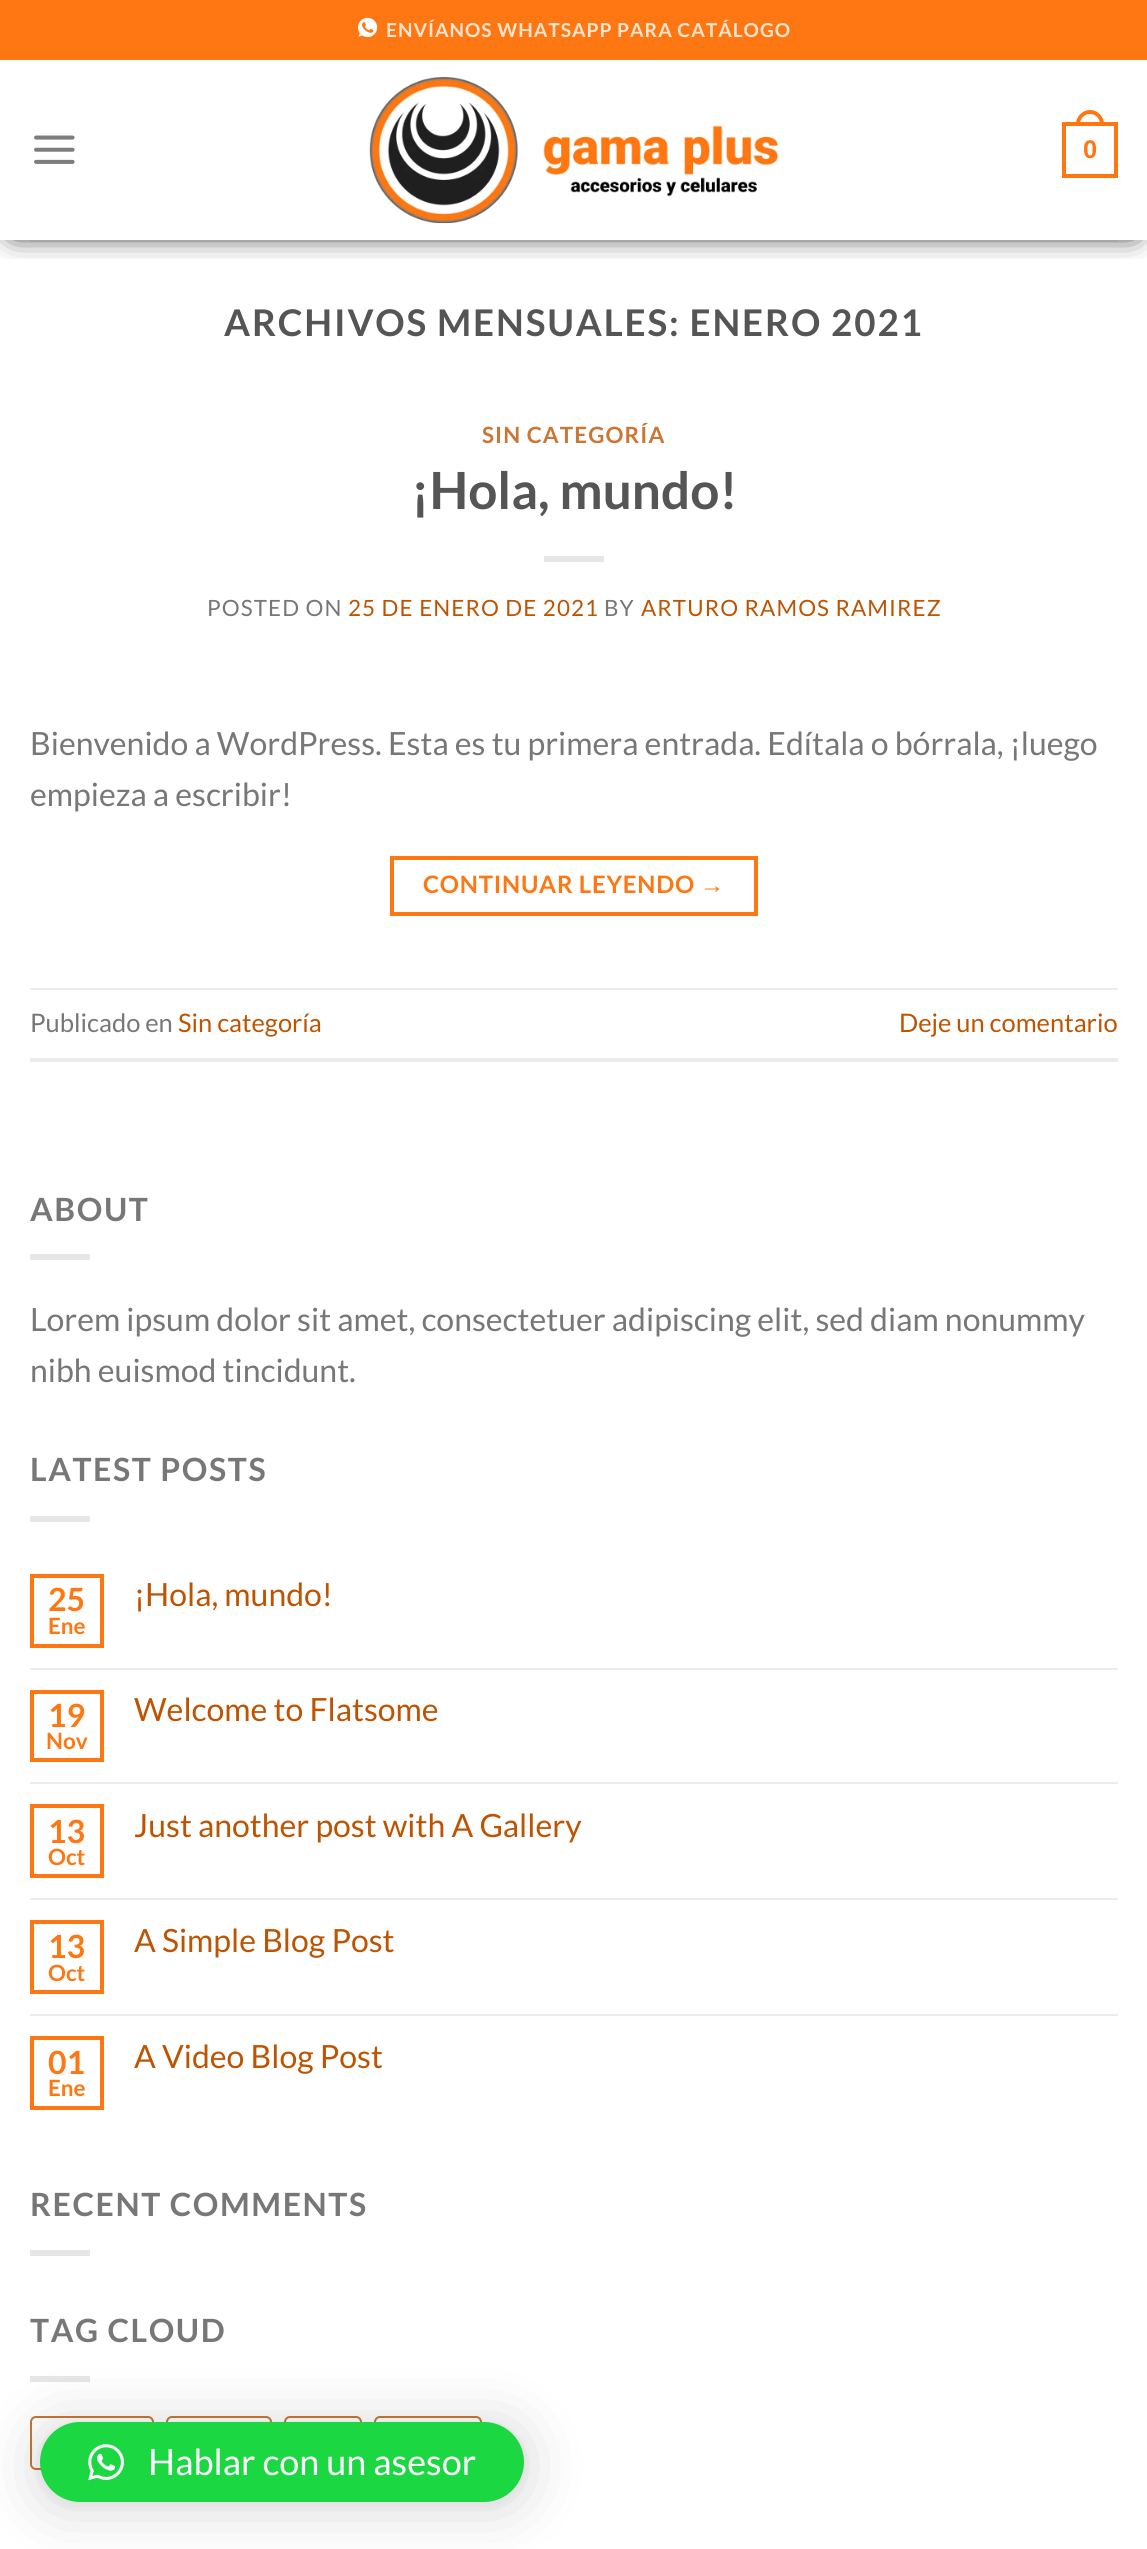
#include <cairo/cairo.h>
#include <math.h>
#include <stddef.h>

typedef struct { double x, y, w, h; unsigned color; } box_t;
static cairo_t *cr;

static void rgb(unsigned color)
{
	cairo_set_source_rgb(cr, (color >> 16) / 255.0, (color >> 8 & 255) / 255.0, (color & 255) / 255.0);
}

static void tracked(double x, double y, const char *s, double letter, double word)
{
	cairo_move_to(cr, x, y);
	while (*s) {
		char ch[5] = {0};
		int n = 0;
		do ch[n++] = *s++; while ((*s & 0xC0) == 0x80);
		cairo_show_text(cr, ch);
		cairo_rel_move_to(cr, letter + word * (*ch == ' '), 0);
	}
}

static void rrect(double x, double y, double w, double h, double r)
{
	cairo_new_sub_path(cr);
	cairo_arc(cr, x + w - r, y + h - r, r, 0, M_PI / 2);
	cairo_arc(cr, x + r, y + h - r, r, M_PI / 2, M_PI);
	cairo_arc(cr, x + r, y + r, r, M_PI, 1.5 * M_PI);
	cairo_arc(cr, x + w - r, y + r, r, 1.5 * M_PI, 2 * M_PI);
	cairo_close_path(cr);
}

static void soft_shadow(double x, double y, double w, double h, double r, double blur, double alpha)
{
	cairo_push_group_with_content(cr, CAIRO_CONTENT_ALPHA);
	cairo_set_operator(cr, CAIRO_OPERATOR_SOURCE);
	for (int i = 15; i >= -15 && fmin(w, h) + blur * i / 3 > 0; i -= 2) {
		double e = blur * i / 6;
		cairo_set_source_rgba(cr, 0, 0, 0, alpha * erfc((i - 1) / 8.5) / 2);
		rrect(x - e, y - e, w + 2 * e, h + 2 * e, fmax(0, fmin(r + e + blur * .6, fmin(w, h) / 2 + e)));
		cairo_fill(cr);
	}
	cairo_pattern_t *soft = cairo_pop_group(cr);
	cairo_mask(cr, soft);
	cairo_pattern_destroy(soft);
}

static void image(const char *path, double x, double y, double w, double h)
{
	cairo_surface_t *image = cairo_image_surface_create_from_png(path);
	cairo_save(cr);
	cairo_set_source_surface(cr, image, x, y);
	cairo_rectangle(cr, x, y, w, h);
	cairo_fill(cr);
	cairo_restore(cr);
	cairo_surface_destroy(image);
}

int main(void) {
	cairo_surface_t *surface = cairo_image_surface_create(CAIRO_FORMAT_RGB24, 1147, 2549);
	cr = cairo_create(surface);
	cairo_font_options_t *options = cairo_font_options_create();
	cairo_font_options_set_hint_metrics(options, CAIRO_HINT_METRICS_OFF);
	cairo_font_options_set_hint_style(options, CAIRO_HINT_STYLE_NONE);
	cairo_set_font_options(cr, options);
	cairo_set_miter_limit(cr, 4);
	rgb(0xffffff);
	cairo_paint(cr);
	cairo_save(cr);
	cairo_rectangle(cr, 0, 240, 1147, 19);
	cairo_clip(cr);
	rgb(0x000000);
	soft_shadow(14, 18, 1120, 212, 0, 15, 0.7);
	soft_shadow(14, 18, 1120, 212, 0, 15, 0.7);
	cairo_restore(cr);
	rgb(0xfe7713);
	cairo_rectangle(cr, 0, 0, 1147, 60);
	cairo_fill(cr);
	image("img/1.png", 358, 17, 20, 21);
	image("img/2.png", 34, 135, 41, 29);
	image("img/3.png", 369, 77, 410, 146);
	cairo_rectangle(cr, 1064, 124, 52, 52);
	cairo_set_line_width(cr, 4);
	cairo_stroke(cr);
	cairo_set_fill_rule(cr, CAIRO_FILL_RULE_EVEN_ODD);
	cairo_new_path(cr);
	cairo_move_to(cr, 1090, 110);
	cairo_curve_to(cr, 1097.5, 110, 1104, 116.5, 1104, 124);
	cairo_line_to(cr, 1104, 126);
	cairo_line_to(cr, 1076, 126);
	cairo_line_to(cr, 1076, 124);
	cairo_curve_to(cr, 1076, 116.5, 1082.5, 110, 1090, 110);
	cairo_close_path(cr);
	cairo_move_to(cr, 1090, 114);
	cairo_curve_to(cr, 1095.5, 114, 1100, 118.5, 1100, 124);
	cairo_line_to(cr, 1100, 126);
	cairo_line_to(cr, 1080, 126);
	cairo_line_to(cr, 1080, 124);
	cairo_curve_to(cr, 1080, 118.5, 1084.5, 114, 1090, 114);
	cairo_close_path(cr);
	cairo_fill(cr);
	cairo_set_source_rgba(cr, 0.467, 0.467, 0.467, 0.1);
	cairo_rectangle(cr, 30, 240, 1088, 2);
	cairo_fill(cr);
	rgb(0xe6e6e6);
	cairo_rectangle(cr, 544, 556, 60, 6);
	cairo_fill(cr);
	cairo_rectangle(cr, 392, 858, 364, 56);
	rgb(0xfe7713);
	cairo_stroke(cr);
	{
		static const box_t items[] = {
			{30, 988, 1088, 2, 0xececec},
			{30, 1058, 1088, 4, 0xececec},
			{30, 1254, 60, 6, 0xe6e6e6},
			{30, 1516, 60, 6, 0xe6e6e6},
		};
		for (size_t i = 0; i < sizeof items / sizeof *items; i++) {
			rgb(items[i].color);
			cairo_rectangle(cr, items[i].x, items[i].y, items[i].w, items[i].h);
			cairo_fill(cr);
		}
	}
	cairo_rectangle(cr, 32, 1576, 70, 70);
	rgb(0xfe7713);
	cairo_stroke(cr);
	rgb(0xececec);
	cairo_rectangle(cr, 30, 1668, 1088, 2);
	cairo_fill(cr);
	cairo_rectangle(cr, 32, 1692, 70, 68);
	rgb(0xfe7713);
	cairo_stroke(cr);
	rgb(0xececec);
	cairo_rectangle(cr, 30, 1782, 1088, 2);
	cairo_fill(cr);
	cairo_rectangle(cr, 32, 1806, 70, 70);
	rgb(0xfe7713);
	cairo_stroke(cr);
	rgb(0xececec);
	cairo_rectangle(cr, 30, 1898, 1088, 2);
	cairo_fill(cr);
	cairo_rectangle(cr, 32, 1922, 70, 70);
	rgb(0xfe7713);
	cairo_stroke(cr);
	rgb(0xececec);
	cairo_rectangle(cr, 30, 2014, 1088, 2);
	cairo_fill(cr);
	cairo_rectangle(cr, 32, 2038, 70, 70);
	rgb(0xfe7713);
	cairo_stroke(cr);
	rgb(0xe6e6e6);
	cairo_rectangle(cr, 30, 2250, 60, 6);
	cairo_fill(cr);
	cairo_rectangle(cr, 30, 2376, 60, 6);
	cairo_fill(cr);
	rrect(31, 2417, 122, 52, 5);
	rgb(0xcb7635);
	cairo_set_line_width(cr, 2);
	cairo_stroke(cr);
	rrect(167, 2417, 104, 52, 5);
	cairo_stroke(cr);
	rrect(285, 2417, 76, 52, 5);
	cairo_stroke(cr);
	rrect(375, 2417, 106, 52, 5);
	cairo_stroke(cr);
	rgb(0x000000);
	soft_shadow(40, 2426, 484, 80, 40, 32, 0.16);
	soft_shadow(40, 2424, 484, 80, 40, 6, 0.06);
	rgb(0x1bd741);
	rrect(40, 2422, 484, 80, 40);
	cairo_fill(cr);
	image("img/4.png", 88, 2444, 36, 37);
	cairo_select_font_face(cr, "Lato", CAIRO_FONT_SLANT_NORMAL, CAIRO_FONT_WEIGHT_BOLD);
	cairo_set_font_size(cr, 19.2);
	rgb(0xffe4d0);
	tracked(386, 37, "ENVÍANOS WHATSAPP PARA CATÁLOGO", 0.95, 0);
	cairo_select_font_face(cr, "Liberation Sans", CAIRO_FONT_SLANT_NORMAL, CAIRO_FONT_WEIGHT_BOLD);
	cairo_set_font_size(cr, 25.5);
	rgb(0xfe7713);
	cairo_move_to(cr, 1083, 158);
	cairo_show_text(cr, "0");
	cairo_select_font_face(cr, "Lato", CAIRO_FONT_SLANT_NORMAL, CAIRO_FONT_WEIGHT_BOLD);
	cairo_set_font_size(cr, 36.75);
	rgb(0x555555);
	tracked(224, 336, "ARCHIVOS MENSUALES: ENERO 2021", 1.85, 0);
	cairo_set_font_size(cr, 22.4);
	rgb(0xcb7635);
	tracked(482, 443, "SIN CATEGORÍA", 1.1, 0);
	cairo_set_font_size(cr, 51.25);
	rgb(0x555555);
	cairo_move_to(cr, 411, 509);
	cairo_show_text(cr, "¡Hola, mundo!");
	cairo_select_font_face(cr, "Lato", CAIRO_FONT_SLANT_NORMAL, CAIRO_FONT_WEIGHT_NORMAL);
	cairo_set_font_size(cr, 22.4);
	rgb(0x777777);
	tracked(207, 616, "POSTED ON", 1.1, 0);
	rgb(0xbe5402);
	tracked(348, 616, "25 DE ENERO DE 2021", 1.1, 0);
	rgb(0x777777);
	tracked(604, 616, "BY", 1.1, 0);
	rgb(0xbe5402);
	tracked(641, 616, "ARTURO RAMOS RAMIREZ", 1.1, 0);
	cairo_set_font_size(cr, 32);
	rgb(0x777777);
	cairo_move_to(cr, 30, 755);
	cairo_show_text(cr, "Bienvenido a WordPress. Esta es tu primera entrada. Edítala o bórrala, ¡luego");
	cairo_move_to(cr, 30, 806);
	cairo_show_text(cr, "empieza a escribir!");
	cairo_select_font_face(cr, "Lato", CAIRO_FONT_SLANT_NORMAL, CAIRO_FONT_WEIGHT_BOLD);
	cairo_set_font_size(cr, 24);
	rgb(0xfe7713);
	tracked(423, 893, "CONTINUAR LEYENDO", 0.75, 0);
	cairo_select_font_face(cr, "Liberation Sans", CAIRO_FONT_SLANT_NORMAL, CAIRO_FONT_WEIGHT_BOLD);
	tracked(700, 893, "→", 0.75, 0);
	cairo_select_font_face(cr, "Lato", CAIRO_FONT_SLANT_NORMAL, CAIRO_FONT_WEIGHT_NORMAL);
	cairo_set_font_size(cr, 25.5);
	rgb(0x777777);
	cairo_move_to(cr, 30, 1032);
	cairo_show_text(cr, "Publicado en");
	rgb(0xbe5402);
	cairo_move_to(cr, 178, 1032);
	cairo_show_text(cr, "Sin categoría");
	cairo_move_to(cr, 899, 1032);
	cairo_show_text(cr, "Deje un comentario");
	cairo_select_font_face(cr, "Lato", CAIRO_FONT_SLANT_NORMAL, CAIRO_FONT_WEIGHT_BOLD);
	cairo_set_font_size(cr, 32);
	rgb(0x777777);
	tracked(30, 1221, "ABOUT", 1.6, 0);
	cairo_select_font_face(cr, "Lato", CAIRO_FONT_SLANT_NORMAL, CAIRO_FONT_WEIGHT_NORMAL);
	cairo_move_to(cr, 30, 1331);
	cairo_show_text(cr, "Lorem ipsum dolor sit amet, consectetuer adipiscing elit, sed diam nonummy");
	cairo_move_to(cr, 30, 1382);
	cairo_show_text(cr, "nibh euismod tincidunt.");
	cairo_select_font_face(cr, "Lato", CAIRO_FONT_SLANT_NORMAL, CAIRO_FONT_WEIGHT_BOLD);
	tracked(30, 1481, "LATEST POSTS", 1.6, 0);
	rgb(0xfe7713);
	cairo_move_to(cr, 48, 1611);
	cairo_show_text(cr, "25");
	cairo_set_font_size(cr, 22.4);
	cairo_move_to(cr, 48, 1634);
	cairo_show_text(cr, "Ene");
	cairo_select_font_face(cr, "Lato", CAIRO_FONT_SLANT_NORMAL, CAIRO_FONT_WEIGHT_NORMAL);
	cairo_set_font_size(cr, 32);
	rgb(0xbe5402);
	cairo_move_to(cr, 134, 1606);
	cairo_show_text(cr, "¡Hola, mundo!");
	cairo_select_font_face(cr, "Lato", CAIRO_FONT_SLANT_NORMAL, CAIRO_FONT_WEIGHT_BOLD);
	rgb(0xfe7713);
	cairo_move_to(cr, 48, 1727);
	cairo_show_text(cr, "19");
	cairo_set_font_size(cr, 22.4);
	cairo_move_to(cr, 46, 1749);
	cairo_show_text(cr, "Nov");
	cairo_select_font_face(cr, "Lato", CAIRO_FONT_SLANT_NORMAL, CAIRO_FONT_WEIGHT_NORMAL);
	cairo_set_font_size(cr, 32);
	rgb(0xbe5402);
	cairo_move_to(cr, 134, 1721);
	cairo_show_text(cr, "Welcome to Flatsome");
	cairo_select_font_face(cr, "Lato", CAIRO_FONT_SLANT_NORMAL, CAIRO_FONT_WEIGHT_BOLD);
	rgb(0xfe7713);
	cairo_move_to(cr, 48, 1843);
	cairo_show_text(cr, "13");
	cairo_set_font_size(cr, 22.4);
	cairo_move_to(cr, 48, 1865);
	cairo_show_text(cr, "Oct");
	cairo_select_font_face(cr, "Lato", CAIRO_FONT_SLANT_NORMAL, CAIRO_FONT_WEIGHT_NORMAL);
	cairo_set_font_size(cr, 32);
	rgb(0xbe5402);
	cairo_move_to(cr, 134, 1837);
	cairo_show_text(cr, "Just another post with A Gallery");
	cairo_select_font_face(cr, "Lato", CAIRO_FONT_SLANT_NORMAL, CAIRO_FONT_WEIGHT_BOLD);
	rgb(0xfe7713);
	cairo_move_to(cr, 48, 1958);
	cairo_show_text(cr, "13");
	cairo_set_font_size(cr, 22.4);
	cairo_move_to(cr, 48, 1981);
	cairo_show_text(cr, "Oct");
	cairo_select_font_face(cr, "Lato", CAIRO_FONT_SLANT_NORMAL, CAIRO_FONT_WEIGHT_NORMAL);
	cairo_set_font_size(cr, 32);
	rgb(0xbe5402);
	cairo_move_to(cr, 134, 1952);
	cairo_show_text(cr, "A Simple Blog Post");
	cairo_select_font_face(cr, "Lato", CAIRO_FONT_SLANT_NORMAL, CAIRO_FONT_WEIGHT_BOLD);
	rgb(0xfe7713);
	cairo_move_to(cr, 48, 2074);
	cairo_show_text(cr, "01");
	cairo_set_font_size(cr, 22.4);
	cairo_move_to(cr, 48, 2096);
	cairo_show_text(cr, "Ene");
	cairo_select_font_face(cr, "Lato", CAIRO_FONT_SLANT_NORMAL, CAIRO_FONT_WEIGHT_NORMAL);
	cairo_set_font_size(cr, 32);
	rgb(0xbe5402);
	cairo_move_to(cr, 134, 2068);
	cairo_show_text(cr, "A Video Blog Post");
	cairo_select_font_face(cr, "Lato", CAIRO_FONT_SLANT_NORMAL, CAIRO_FONT_WEIGHT_BOLD);
	rgb(0x777777);
	tracked(30, 2216, "RECENT COMMENTS", 1.6, 0);
	tracked(30, 2342, "TAG CLOUD", 1.6, 0);
	cairo_select_font_face(cr, "Lato", CAIRO_FONT_SLANT_NORMAL, CAIRO_FONT_WEIGHT_NORMAL);
	cairo_set_font_size(cr, 36);
	rgb(0xffffff);
	cairo_move_to(cr, 148, 2475);
	cairo_show_text(cr, "Hablar con un asesor");
	cairo_surface_write_to_png(surface, "page.png");
	cairo_font_options_destroy(options);
	cairo_destroy(cr);
	cairo_surface_destroy(surface);
	return 0;
}
